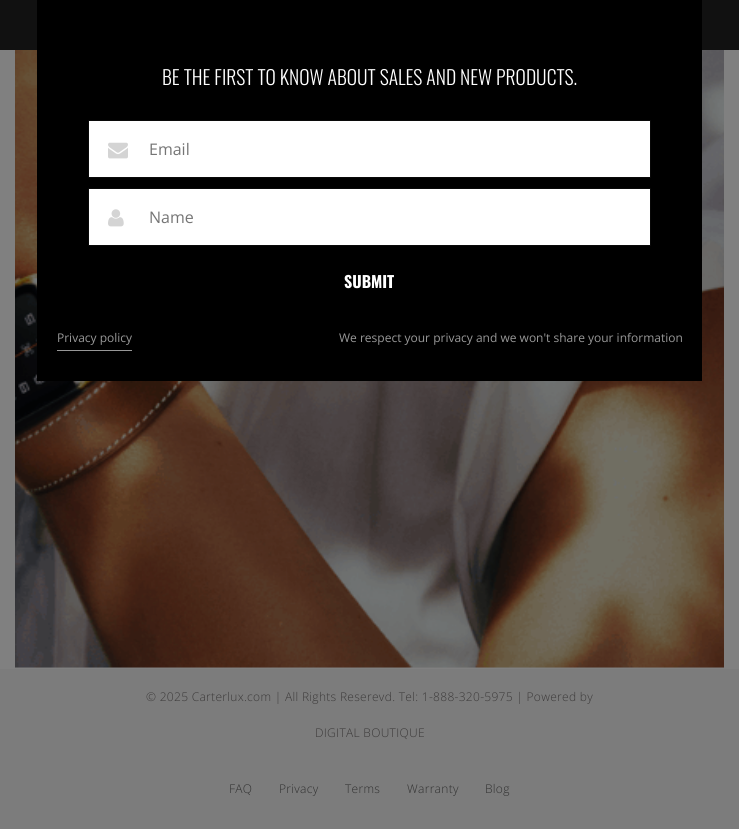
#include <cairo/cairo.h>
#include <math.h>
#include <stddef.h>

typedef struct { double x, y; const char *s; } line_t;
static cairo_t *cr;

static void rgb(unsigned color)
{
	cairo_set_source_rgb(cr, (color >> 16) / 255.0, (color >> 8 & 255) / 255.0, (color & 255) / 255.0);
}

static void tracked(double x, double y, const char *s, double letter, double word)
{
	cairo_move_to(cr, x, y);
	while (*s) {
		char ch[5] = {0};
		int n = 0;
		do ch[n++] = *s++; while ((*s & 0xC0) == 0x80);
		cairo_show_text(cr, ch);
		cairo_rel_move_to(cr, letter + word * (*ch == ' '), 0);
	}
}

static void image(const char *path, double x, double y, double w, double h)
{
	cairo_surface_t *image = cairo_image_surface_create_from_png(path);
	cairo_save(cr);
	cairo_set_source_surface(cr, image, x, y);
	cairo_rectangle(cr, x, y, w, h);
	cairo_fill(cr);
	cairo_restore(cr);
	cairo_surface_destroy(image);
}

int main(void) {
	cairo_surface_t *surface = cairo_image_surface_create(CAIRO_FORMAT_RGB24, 739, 829);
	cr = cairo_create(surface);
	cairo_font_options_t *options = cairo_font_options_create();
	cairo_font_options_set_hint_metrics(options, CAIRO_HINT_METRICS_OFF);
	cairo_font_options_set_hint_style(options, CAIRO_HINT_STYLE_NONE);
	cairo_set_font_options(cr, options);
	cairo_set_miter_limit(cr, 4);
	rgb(0x808080);
	cairo_paint(cr);
	rgb(0x111111);
	cairo_rectangle(cr, 0, 0, 739, 50);
	cairo_fill(cr);
	image("img/3.png", 15, 50, 709, 618);
	rgb(0x000000);
	cairo_rectangle(cr, 37, 0, 665, 381);
	cairo_fill(cr);
	rgb(0xffffff);
	cairo_rectangle(cr, 88.5, 120.5, 562, 57);
	cairo_fill_preserve(cr);
	rgb(0x090909);
	cairo_set_line_width(cr, 1);
	cairo_stroke(cr);
	image("img/1.png", 108, 142, 20, 17);
	rgb(0xffffff);
	cairo_rectangle(cr, 88.5, 188.5, 562, 57);
	cairo_fill_preserve(cr);
	rgb(0x090909);
	cairo_stroke(cr);
	image("img/2.png", 108, 209, 16, 18);
	rgb(0x989898);
	cairo_rectangle(cr, 57, 350, 75, 1);
	cairo_fill(cr);
	rgb(0x7c7c7c);
	cairo_rectangle(cr, 0, 669, 739, 160);
	cairo_fill(cr);
	cairo_select_font_face(cr, "Oswald Light", CAIRO_FONT_SLANT_NORMAL, CAIRO_FONT_WEIGHT_NORMAL);
	cairo_set_font_size(cr, 19.6);
	rgb(0xffffff);
	cairo_move_to(cr, 162, 85);
	cairo_show_text(cr, "BE THE FIRST TO KNOW ABOUT SALES AND NEW PRODUCTS.");
	cairo_select_font_face(cr, "Open Sans", CAIRO_FONT_SLANT_NORMAL, CAIRO_FONT_WEIGHT_NORMAL);
	cairo_set_font_size(cr, 16);
	rgb(0x757575);
	cairo_move_to(cr, 149, 155);
	cairo_show_text(cr, "Email");
	cairo_move_to(cr, 149, 223);
	cairo_show_text(cr, "Name");
	cairo_select_font_face(cr, "Oswald", CAIRO_FONT_SLANT_NORMAL, CAIRO_FONT_WEIGHT_BOLD);
	rgb(0xffffff);
	cairo_move_to(cr, 344, 288);
	cairo_show_text(cr, "SUBMIT");
	cairo_select_font_face(cr, "Open Sans", CAIRO_FONT_SLANT_NORMAL, CAIRO_FONT_WEIGHT_NORMAL);
	cairo_set_font_size(cr, 12);
	rgb(0x989898);
	cairo_move_to(cr, 57, 342);
	cairo_show_text(cr, "Privacy policy");
	cairo_move_to(cr, 339, 342);
	cairo_show_text(cr, "We respect your privacy and we won't share your information");
	cairo_select_font_face(cr, "Open Sans Light", CAIRO_FONT_SLANT_NORMAL, CAIRO_FONT_WEIGHT_NORMAL);
	rgb(0x3c3a3a);
	tracked(146, 701, "© 2025 Carterlux.com | All Rights Reserevd. Tel: 1-888-320-5975 | Powered by", 0.3, 0);
	tracked(315, 737, "DIGITAL BOUTIQUE", 0.3, 0);
	rgb(0x313131);
	{
		static const line_t items[] = {
			{229, 793, "FAQ"},
			{279, 793, "Privacy"},
			{345, 793, "Terms"},
			{407, 793, "Warranty"},
			{485, 793, "Blog"},
		};
		for (size_t i = 0; i < sizeof items / sizeof *items; i++) {
			tracked(items[i].x, items[i].y, items[i].s, 0.3, 0);
		}
	}
	cairo_surface_write_to_png(surface, "page.png");
	cairo_font_options_destroy(options);
	cairo_destroy(cr);
	cairo_surface_destroy(surface);
	return 0;
}
